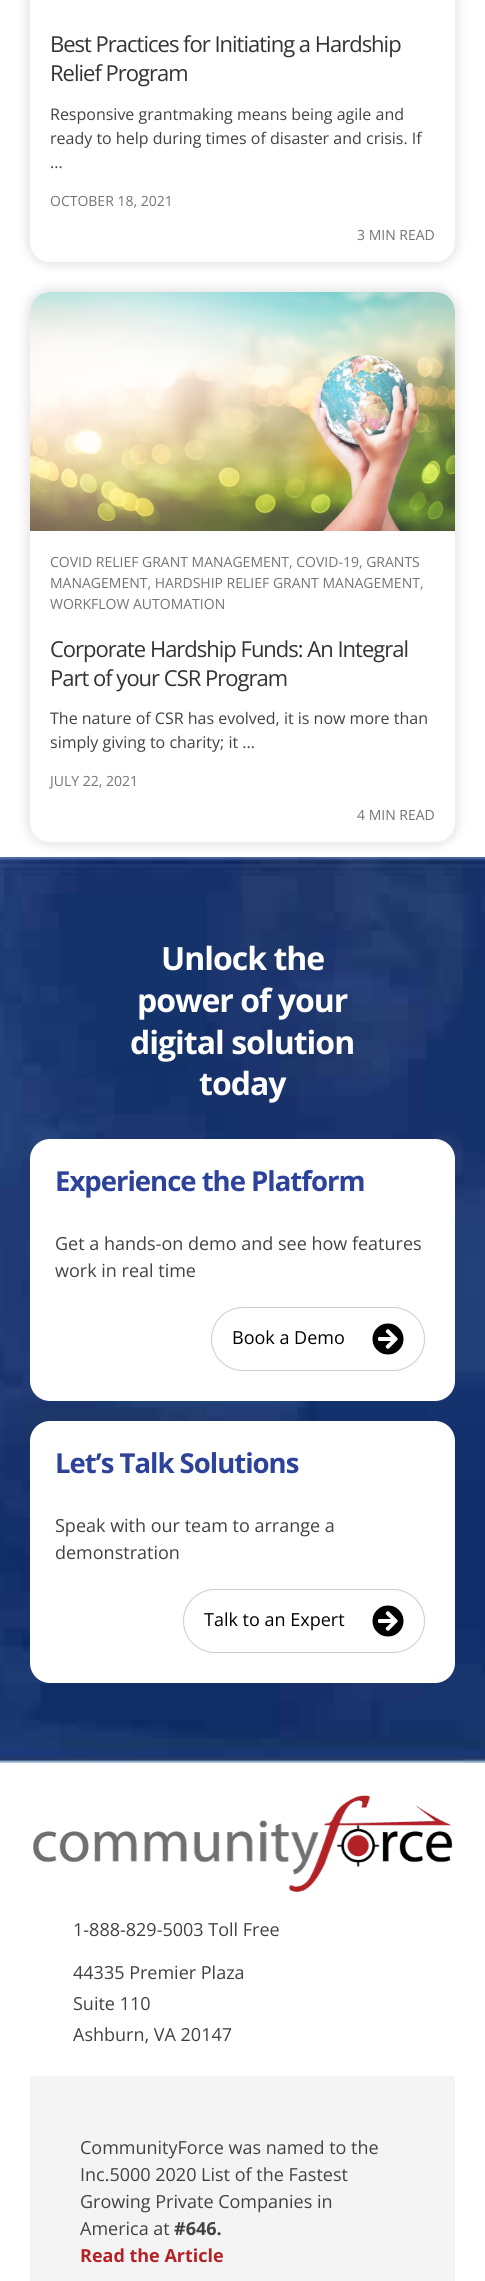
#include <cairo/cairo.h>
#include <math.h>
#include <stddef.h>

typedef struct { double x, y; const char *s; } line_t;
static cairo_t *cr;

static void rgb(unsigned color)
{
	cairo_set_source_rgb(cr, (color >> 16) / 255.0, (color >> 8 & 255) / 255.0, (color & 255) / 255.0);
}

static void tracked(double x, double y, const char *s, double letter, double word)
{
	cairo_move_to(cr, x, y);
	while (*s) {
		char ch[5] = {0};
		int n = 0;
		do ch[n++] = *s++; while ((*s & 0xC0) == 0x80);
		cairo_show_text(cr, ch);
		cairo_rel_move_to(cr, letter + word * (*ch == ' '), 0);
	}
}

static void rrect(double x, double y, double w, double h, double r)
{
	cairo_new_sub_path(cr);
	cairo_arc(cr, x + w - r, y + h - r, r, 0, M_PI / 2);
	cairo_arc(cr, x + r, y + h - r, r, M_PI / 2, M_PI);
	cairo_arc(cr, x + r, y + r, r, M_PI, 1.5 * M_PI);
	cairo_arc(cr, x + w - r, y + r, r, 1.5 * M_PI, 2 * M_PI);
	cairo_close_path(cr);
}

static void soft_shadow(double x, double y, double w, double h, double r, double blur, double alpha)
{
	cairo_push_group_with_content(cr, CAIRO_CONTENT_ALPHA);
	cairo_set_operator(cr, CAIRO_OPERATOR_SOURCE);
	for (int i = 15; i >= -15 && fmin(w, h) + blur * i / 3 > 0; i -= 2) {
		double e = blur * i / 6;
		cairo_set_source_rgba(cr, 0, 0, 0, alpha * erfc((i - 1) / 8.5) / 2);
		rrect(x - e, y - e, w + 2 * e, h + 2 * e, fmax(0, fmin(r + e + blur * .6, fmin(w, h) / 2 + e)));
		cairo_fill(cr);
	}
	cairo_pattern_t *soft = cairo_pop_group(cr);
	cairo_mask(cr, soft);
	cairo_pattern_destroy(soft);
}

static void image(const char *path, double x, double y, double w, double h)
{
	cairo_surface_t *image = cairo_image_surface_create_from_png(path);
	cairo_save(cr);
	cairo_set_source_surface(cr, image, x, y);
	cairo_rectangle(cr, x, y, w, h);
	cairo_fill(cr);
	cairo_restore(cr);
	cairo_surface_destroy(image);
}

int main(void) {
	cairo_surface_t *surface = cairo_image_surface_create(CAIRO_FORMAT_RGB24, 485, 2281);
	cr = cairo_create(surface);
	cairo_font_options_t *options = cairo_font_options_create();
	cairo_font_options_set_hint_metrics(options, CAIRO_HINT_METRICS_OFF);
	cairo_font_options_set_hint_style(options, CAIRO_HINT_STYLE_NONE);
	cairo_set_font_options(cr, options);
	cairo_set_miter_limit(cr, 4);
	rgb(0xffffff);
	cairo_paint(cr);
	rgb(0x333333);
	soft_shadow(25, -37, 435, 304, 25, 4, 0.1);
	rgb(0xffffff);
	rrect(30, -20, 425, 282, 20);
	cairo_fill(cr);
	image("img/2.png", 0, 857, 485, 906);
	rgb(0x333333);
	soft_shadow(25, 287, 435, 560, 25, 4, 0.1);
	rgb(0xffffff);
	rrect(30, 292, 425, 550, 20);
	cairo_fill(cr);
	image("img/1.png", 30, 292, 425, 239);
	rrect(30, 1139, 425, 262, 20);
	cairo_fill(cr);
	rrect(211.5, 1307.5, 213, 63, 31.5);
	rgb(0xcccccc);
	cairo_set_line_width(cr, 1);
	cairo_stroke(cr);
	image("img/3.png", 372, 1323, 32, 32);
	rgb(0xffffff);
	rrect(30, 1421, 425, 262, 20);
	cairo_fill(cr);
	rrect(183.5, 1589.5, 241, 63, 31.5);
	rgb(0xcccccc);
	cairo_stroke(cr);
	image("img/3.png", 372, 1605, 32, 32);
	image("img/4.png", 33, 1795, 420, 97);
	rgb(0xf4f4f4);
	cairo_rectangle(cr, 30, 2076, 425, 205);
	cairo_fill(cr);
	cairo_select_font_face(cr, "Open Sans", CAIRO_FONT_SLANT_NORMAL, CAIRO_FONT_WEIGHT_NORMAL);
	cairo_set_font_size(cr, 22);
	rgb(0x333333);
	tracked(50, 52, "Best Practices for Initiating a Hardship", -1, 0);
	tracked(50, 81, "Relief Program", -1, 0);
	cairo_set_font_size(cr, 16);
	rgb(0x424242);
	{
		static const line_t items[] = {
			{50, 120, "Responsive grantmaking means being agile and"},
			{50, 144, "ready to help during times of disaster and crisis. If"},
			{50, 168, "..."},
		};
		for (size_t i = 0; i < sizeof items / sizeof *items; i++) {
			cairo_move_to(cr, items[i].x, items[i].y);
			cairo_show_text(cr, items[i].s);
		}
	}
	cairo_set_font_size(cr, 14);
	rgb(0x747474);
	{
		static const line_t items[] = {
			{50, 206, "OCTOBER 18, 2021"},
			{357, 240, "3 MIN READ"},
			{50, 567, "COVID RELIEF GRANT MANAGEMENT, COVID-19, GRANTS"},
			{50, 588, "MANAGEMENT, HARDSHIP RELIEF GRANT MANAGEMENT,"},
			{50, 609, "WORKFLOW AUTOMATION"},
		};
		for (size_t i = 0; i < sizeof items / sizeof *items; i++) {
			cairo_move_to(cr, items[i].x, items[i].y);
			cairo_show_text(cr, items[i].s);
		}
	}
	cairo_set_font_size(cr, 22);
	rgb(0x333333);
	tracked(50, 657, "Corporate Hardship Funds: An Integral", -1, 0);
	tracked(50, 686, "Part of your CSR Program", -1, 0);
	cairo_set_font_size(cr, 16);
	rgb(0x424242);
	cairo_move_to(cr, 50, 724);
	cairo_show_text(cr, "The nature of CSR has evolved, it is now more than");
	cairo_move_to(cr, 50, 748);
	cairo_show_text(cr, "simply giving to charity; it ...");
	cairo_set_font_size(cr, 14);
	rgb(0x747474);
	cairo_move_to(cr, 50, 786);
	cairo_show_text(cr, "JULY 22, 2021");
	cairo_move_to(cr, 357, 820);
	cairo_show_text(cr, "4 MIN READ");
	cairo_select_font_face(cr, "Open Sans", CAIRO_FONT_SLANT_NORMAL, CAIRO_FONT_WEIGHT_BOLD);
	cairo_set_font_size(cr, 32);
	rgb(0xffffff);
	{
		static const line_t items[] = {
			{161, 970, "Unlock the"},
			{137, 1012, "power of your"},
			{130, 1054, "digital solution"},
			{199, 1095, "today"},
		};
		for (size_t i = 0; i < sizeof items / sizeof *items; i++) {
			tracked(items[i].x, items[i].y, items[i].s, -1, 0);
		}
	}
	cairo_set_font_size(cr, 27.5);
	rgb(0x2d429b);
	tracked(55, 1191, "Experience the Platform", -1, 0);
	cairo_select_font_face(cr, "Open Sans", CAIRO_FONT_SLANT_NORMAL, CAIRO_FONT_WEIGHT_NORMAL);
	cairo_set_font_size(cr, 18);
	rgb(0x424242);
	cairo_move_to(cr, 55, 1250);
	cairo_show_text(cr, "Get a hands-on demo and see how features");
	cairo_move_to(cr, 55, 1277);
	cairo_show_text(cr, "work in real time");
	rgb(0x000000);
	cairo_move_to(cr, 232, 1344);
	cairo_show_text(cr, "Book a Demo");
	cairo_select_font_face(cr, "Open Sans", CAIRO_FONT_SLANT_NORMAL, CAIRO_FONT_WEIGHT_BOLD);
	cairo_set_font_size(cr, 27.5);
	rgb(0x2d429b);
	tracked(55, 1473, "Let’s Talk Solutions", -1, 0);
	cairo_select_font_face(cr, "Open Sans", CAIRO_FONT_SLANT_NORMAL, CAIRO_FONT_WEIGHT_NORMAL);
	cairo_set_font_size(cr, 18);
	rgb(0x424242);
	cairo_move_to(cr, 55, 1532);
	cairo_show_text(cr, "Speak with our team to arrange a");
	cairo_move_to(cr, 55, 1559);
	cairo_show_text(cr, "demonstration");
	rgb(0x000000);
	cairo_move_to(cr, 204, 1626);
	cairo_show_text(cr, "Talk to an Expert");
	rgb(0x424242);
	{
		static const line_t items[] = {
			{73, 1936, "1-888-829-5003 Toll Free"},
			{73, 1979, "44335 Premier Plaza"},
			{73, 2010, "Suite 110"},
			{73, 2041, "Ashburn, VA 20147"},
			{80, 2154, "CommunityForce was named to the"},
			{80, 2181, "Inc.5000 2020 List of the Fastest"},
			{80, 2208, "Growing Private Companies in"},
			{80, 2235, "America at"},
		};
		for (size_t i = 0; i < sizeof items / sizeof *items; i++) {
			cairo_move_to(cr, items[i].x, items[i].y);
			cairo_show_text(cr, items[i].s);
		}
	}
	cairo_select_font_face(cr, "Open Sans", CAIRO_FONT_SLANT_NORMAL, CAIRO_FONT_WEIGHT_BOLD);
	cairo_move_to(cr, 174, 2235);
	cairo_show_text(cr, "#646.");
	rgb(0xb52225);
	cairo_move_to(cr, 80, 2262);
	cairo_show_text(cr, "Read the Article");
	cairo_surface_write_to_png(surface, "page.png");
	cairo_font_options_destroy(options);
	cairo_destroy(cr);
	cairo_surface_destroy(surface);
	return 0;
}
